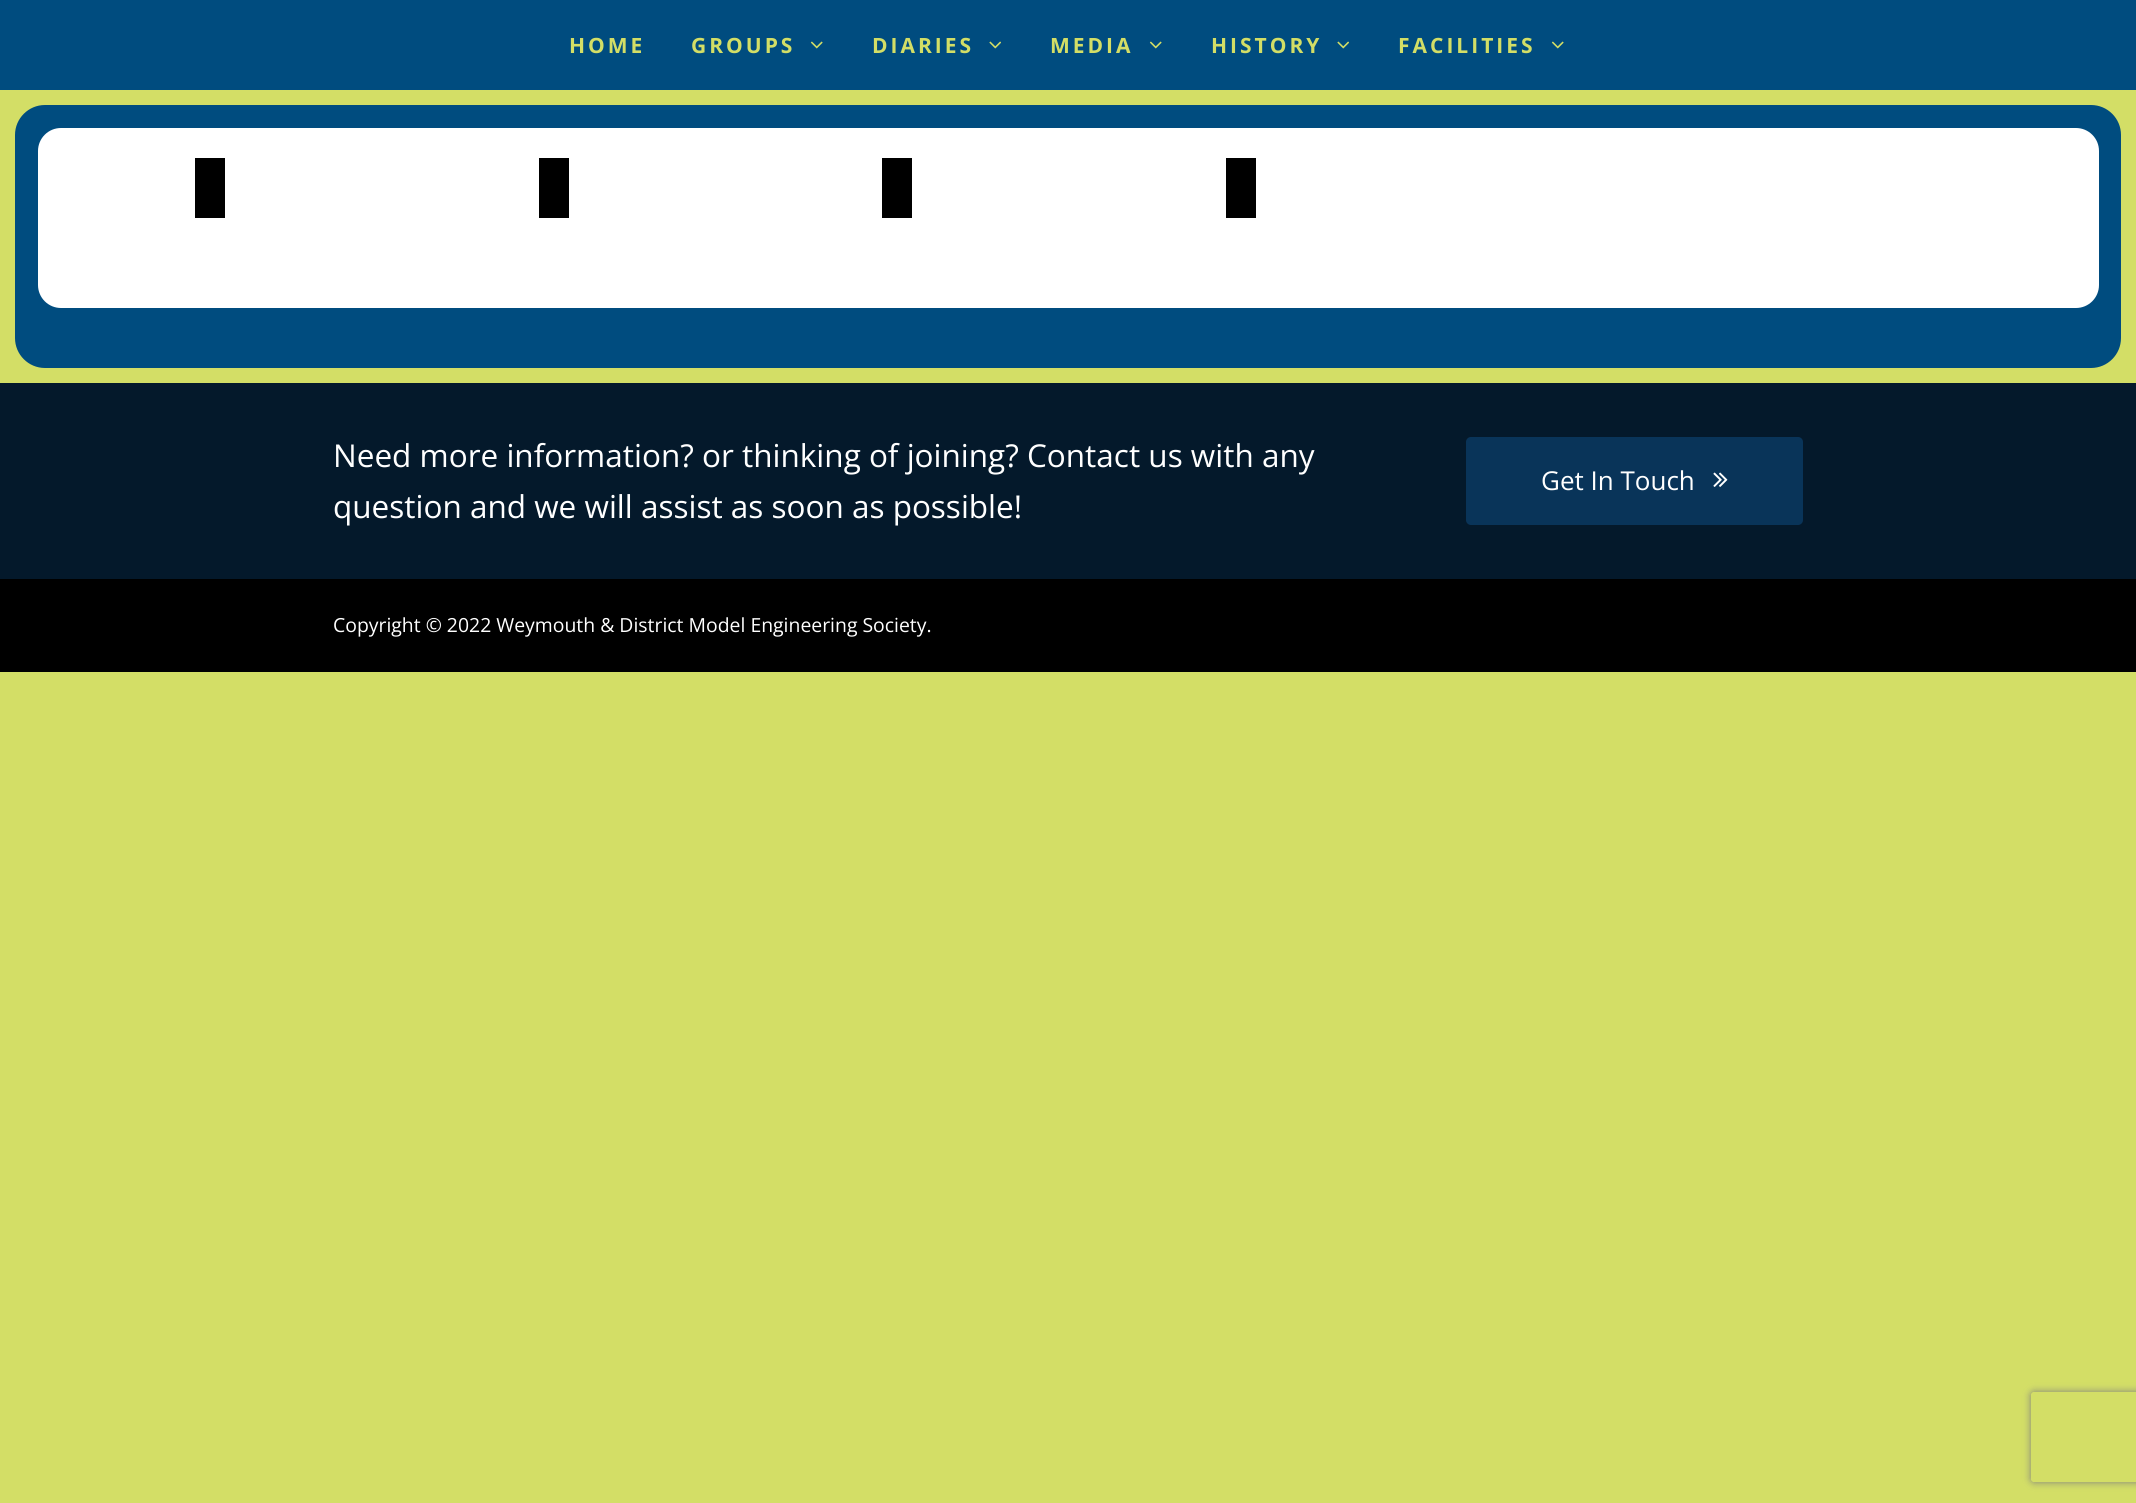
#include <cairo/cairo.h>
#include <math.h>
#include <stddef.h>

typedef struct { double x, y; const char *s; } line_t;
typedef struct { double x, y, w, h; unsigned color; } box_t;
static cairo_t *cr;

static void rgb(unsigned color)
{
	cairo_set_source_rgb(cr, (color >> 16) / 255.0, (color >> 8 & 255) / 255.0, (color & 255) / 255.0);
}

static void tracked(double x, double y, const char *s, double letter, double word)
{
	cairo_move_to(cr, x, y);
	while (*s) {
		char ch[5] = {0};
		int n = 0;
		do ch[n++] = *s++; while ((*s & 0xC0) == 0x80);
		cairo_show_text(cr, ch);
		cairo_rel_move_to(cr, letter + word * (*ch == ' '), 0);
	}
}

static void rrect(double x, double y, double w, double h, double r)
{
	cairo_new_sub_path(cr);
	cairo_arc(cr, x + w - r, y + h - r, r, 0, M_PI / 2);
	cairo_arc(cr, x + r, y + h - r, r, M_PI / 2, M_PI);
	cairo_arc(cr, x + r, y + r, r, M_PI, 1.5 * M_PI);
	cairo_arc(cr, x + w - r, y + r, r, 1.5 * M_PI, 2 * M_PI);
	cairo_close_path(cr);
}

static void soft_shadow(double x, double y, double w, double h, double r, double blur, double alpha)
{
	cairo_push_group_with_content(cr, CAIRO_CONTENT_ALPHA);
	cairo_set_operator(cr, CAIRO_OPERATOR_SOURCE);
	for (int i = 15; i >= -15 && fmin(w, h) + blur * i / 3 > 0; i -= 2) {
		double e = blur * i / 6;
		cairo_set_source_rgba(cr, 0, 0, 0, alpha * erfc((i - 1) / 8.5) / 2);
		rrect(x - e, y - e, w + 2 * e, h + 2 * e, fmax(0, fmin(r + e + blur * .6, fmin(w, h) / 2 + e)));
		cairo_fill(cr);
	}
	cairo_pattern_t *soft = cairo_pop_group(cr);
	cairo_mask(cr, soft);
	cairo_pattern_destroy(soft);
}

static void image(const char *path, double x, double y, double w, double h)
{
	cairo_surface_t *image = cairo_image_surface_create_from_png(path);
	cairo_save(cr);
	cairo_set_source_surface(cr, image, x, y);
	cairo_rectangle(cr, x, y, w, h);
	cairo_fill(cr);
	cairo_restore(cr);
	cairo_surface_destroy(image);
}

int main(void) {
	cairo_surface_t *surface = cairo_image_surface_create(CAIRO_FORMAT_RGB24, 2136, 1503);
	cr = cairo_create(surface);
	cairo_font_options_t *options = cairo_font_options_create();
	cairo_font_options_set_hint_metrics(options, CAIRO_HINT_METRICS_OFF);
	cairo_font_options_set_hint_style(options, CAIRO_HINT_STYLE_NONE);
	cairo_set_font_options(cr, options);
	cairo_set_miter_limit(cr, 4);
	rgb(0xd3de66);
	cairo_paint(cr);
	rgb(0x004c7f);
	cairo_rectangle(cr, 0, 0, 2136, 90);
	cairo_fill(cr);
	image("img/1.png", 810, 41, 13, 8);
	image("img/2.png", 989, 41, 12, 8);
	image("img/1.png", 1149, 41, 13, 8);
	image("img/2.png", 1337, 41, 12, 8);
	image("img/1.png", 1551, 41, 13, 8);
	rrect(7.5, 97.5, 2121, 278, 37.5);
	cairo_fill_preserve(cr);
	rgb(0xd3de66);
	cairo_set_line_width(cr, 15);
	cairo_stroke(cr);
	rgb(0xffffff);
	rrect(38, 128, 2061, 180, 23);
	cairo_fill(cr);
	{
		static const box_t items[] = {
			{195, 158, 30, 60, 0x000000},
			{539, 158, 30, 60, 0x000000},
			{882, 158, 30, 60, 0x000000},
			{1226, 158, 30, 60, 0x000000},
			{0, 383, 2136, 196, 0x04192b},
		};
		for (size_t i = 0; i < sizeof items / sizeof *items; i++) {
			rgb(items[i].color);
			cairo_rectangle(cr, items[i].x, items[i].y, items[i].w, items[i].h);
			cairo_fill(cr);
		}
	}
	rgb(0x093459);
	rrect(1466, 437, 337, 88, 5);
	cairo_fill(cr);
	image("img/3.png", 1713, 472, 15, 15);
	rgb(0x000000);
	cairo_rectangle(cr, 0, 579, 2136, 93);
	cairo_fill(cr);
	cairo_save(cr);
	cairo_set_fill_rule(cr, CAIRO_FILL_RULE_EVEN_ODD);
	cairo_new_path(cr);
	cairo_move_to(cr, 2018, 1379);
	cairo_line_to(cr, 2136, 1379);
	cairo_line_to(cr, 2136, 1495);
	cairo_line_to(cr, 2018, 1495);
	cairo_close_path(cr);
	cairo_move_to(cr, 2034, 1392);
	cairo_line_to(cr, 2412, 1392);
	cairo_curve_to(cr, 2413.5, 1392, 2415, 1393.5, 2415, 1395);
	cairo_line_to(cr, 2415, 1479);
	cairo_curve_to(cr, 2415, 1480.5, 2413.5, 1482, 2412, 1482);
	cairo_line_to(cr, 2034, 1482);
	cairo_curve_to(cr, 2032.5, 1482, 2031, 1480.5, 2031, 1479);
	cairo_line_to(cr, 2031, 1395);
	cairo_curve_to(cr, 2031, 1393.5, 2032.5, 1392, 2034, 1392);
	cairo_close_path(cr);
	cairo_clip(cr);
	rgb(0x808080);
	soft_shadow(2031, 1392, 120, 90, 3, 4, 1);
	cairo_restore(cr);
	cairo_select_font_face(cr, "Open Sans", CAIRO_FONT_SLANT_NORMAL, CAIRO_FONT_WEIGHT_BOLD);
	cairo_set_font_size(cr, 21);
	rgb(0xd3de66);
	{
		static const line_t items[] = {
			{569, 53, "HOME"},
			{691, 53, "GROUPS"},
			{872, 53, "DIARIES"},
			{1050, 53, "MEDIA"},
			{1211, 53, "HISTORY"},
			{1398, 53, "FACILITIES"},
		};
		for (size_t i = 0; i < sizeof items / sizeof *items; i++) {
			tracked(items[i].x, items[i].y, items[i].s, 3, 0);
		}
	}
	cairo_select_font_face(cr, "Open Sans", CAIRO_FONT_SLANT_NORMAL, CAIRO_FONT_WEIGHT_NORMAL);
	cairo_set_font_size(cr, 31.5);
	rgb(0xffffff);
	cairo_move_to(cr, 333, 467);
	cairo_show_text(cr, "Need more information? or thinking of joining? Contact us with any");
	cairo_move_to(cr, 333, 518);
	cairo_show_text(cr, "question and we will assist as soon as possible!");
	cairo_set_font_size(cr, 26);
	cairo_move_to(cr, 1541, 490);
	cairo_show_text(cr, "Get In Touch");
	cairo_set_font_size(cr, 19.4);
	cairo_move_to(cr, 333, 632);
	cairo_show_text(cr, "Copyright © 2022 Weymouth & District Model Engineering Society.");
	cairo_surface_write_to_png(surface, "page.png");
	cairo_font_options_destroy(options);
	cairo_destroy(cr);
	cairo_surface_destroy(surface);
	return 0;
}
